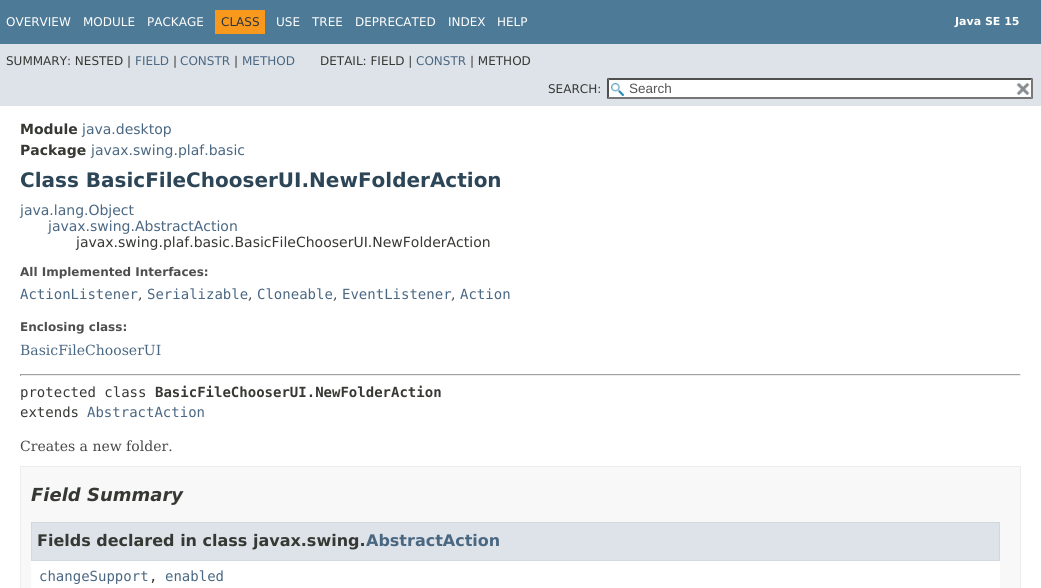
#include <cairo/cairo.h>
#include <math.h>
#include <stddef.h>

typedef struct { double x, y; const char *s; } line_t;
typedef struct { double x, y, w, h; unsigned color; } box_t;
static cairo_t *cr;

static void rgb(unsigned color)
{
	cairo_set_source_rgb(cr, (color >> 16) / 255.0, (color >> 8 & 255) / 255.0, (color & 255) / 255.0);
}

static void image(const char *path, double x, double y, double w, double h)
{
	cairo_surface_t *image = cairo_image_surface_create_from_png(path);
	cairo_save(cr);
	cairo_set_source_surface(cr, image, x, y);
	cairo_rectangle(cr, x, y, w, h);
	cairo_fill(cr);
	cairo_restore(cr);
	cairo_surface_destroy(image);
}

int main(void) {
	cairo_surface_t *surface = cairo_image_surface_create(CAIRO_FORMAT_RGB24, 1041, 588);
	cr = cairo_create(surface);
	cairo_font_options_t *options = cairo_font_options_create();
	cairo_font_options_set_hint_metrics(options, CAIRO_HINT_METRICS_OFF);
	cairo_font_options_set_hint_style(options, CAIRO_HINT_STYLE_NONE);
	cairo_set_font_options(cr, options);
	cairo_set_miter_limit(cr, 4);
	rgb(0xffffff);
	cairo_paint(cr);
	{
		static const box_t items[] = {
			{0, 0, 1041, 44, 0x4d7a97},
			{215, 10, 50, 24, 0xf8981d},
			{0, 44, 1041, 62, 0xdee3e9},
			{607, 78, 426, 21, 0xffffff},
		};
		for (size_t i = 0; i < sizeof items / sizeof *items; i++) {
			rgb(items[i].color);
			cairo_rectangle(cr, items[i].x, items[i].y, items[i].w, items[i].h);
			cairo_fill(cr);
		}
	}
	image("img/1.png", 611, 83, 13, 13);
	rgb(0x4f4f4f);
	cairo_new_path(cr);
	cairo_move_to(cr, 607, 78);
	cairo_line_to(cr, 1033, 78);
	cairo_line_to(cr, 1031, 80);
	cairo_line_to(cr, 609, 80);
	cairo_close_path(cr);
	cairo_fill(cr);
	rgb(0x767676);
	cairo_new_path(cr);
	cairo_move_to(cr, 1033, 78);
	cairo_line_to(cr, 1033, 99);
	cairo_line_to(cr, 1031, 97);
	cairo_line_to(cr, 1031, 80);
	cairo_close_path(cr);
	cairo_fill(cr);
	cairo_new_path(cr);
	cairo_move_to(cr, 1033, 99);
	cairo_line_to(cr, 607, 99);
	cairo_line_to(cr, 609, 97);
	cairo_line_to(cr, 1031, 97);
	cairo_close_path(cr);
	cairo_fill(cr);
	rgb(0x4f4f4f);
	cairo_new_path(cr);
	cairo_move_to(cr, 607, 99);
	cairo_line_to(cr, 607, 78);
	cairo_line_to(cr, 609, 80);
	cairo_line_to(cr, 609, 97);
	cairo_close_path(cr);
	cairo_fill(cr);
	image("img/2.png", 1016, 83, 14, 12);
	{
		static const box_t items[] = {
			{20, 374, 1001, 1, 0x9f9f9f},
			{1020, 374, 1, 2, 0xeeeeee},
			{20, 375, 1001, 1, 0xeeeeee},
			{20, 374, 1, 2, 0x9f9f9f},
		};
		for (size_t i = 0; i < sizeof items / sizeof *items; i++) {
			rgb(items[i].color);
			cairo_rectangle(cr, items[i].x, items[i].y, items[i].w, items[i].h);
			cairo_fill(cr);
		}
	}
	rgb(0xf8f8f8);
	cairo_rectangle(cr, 20.5, 466.5, 1000, 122);
	cairo_fill_preserve(cr);
	rgb(0xededed);
	cairo_set_line_width(cr, 1);
	cairo_stroke(cr);
	rgb(0xffffff);
	cairo_rectangle(cr, 31, 561, 969, 27);
	cairo_fill(cr);
	rgb(0xdee3e9);
	cairo_rectangle(cr, 31.5, 522.5, 968, 38);
	cairo_fill_preserve(cr);
	rgb(0xd0d9e0);
	cairo_stroke(cr);
	cairo_select_font_face(cr, "DejaVu Sans", CAIRO_FONT_SLANT_NORMAL, CAIRO_FONT_WEIGHT_NORMAL);
	cairo_set_font_size(cr, 12);
	rgb(0xffffff);
	{
		static const line_t items[] = {
			{6, 26, "OVERVIEW"},
			{83, 26, "MODULE"},
			{147, 26, "PACKAGE"},
		};
		for (size_t i = 0; i < sizeof items / sizeof *items; i++) {
			cairo_move_to(cr, items[i].x, items[i].y);
			cairo_show_text(cr, items[i].s);
		}
	}
	rgb(0x253441);
	cairo_move_to(cr, 221, 26);
	cairo_show_text(cr, "CLASS");
	rgb(0xffffff);
	{
		static const line_t items[] = {
			{276, 26, "USE"},
			{312, 26, "TREE"},
			{355, 26, "DEPRECATED"},
			{448, 26, "INDEX"},
			{497, 26, "HELP"},
		};
		for (size_t i = 0; i < sizeof items / sizeof *items; i++) {
			cairo_move_to(cr, items[i].x, items[i].y);
			cairo_show_text(cr, items[i].s);
		}
	}
	cairo_select_font_face(cr, "DejaVu Sans", CAIRO_FONT_SLANT_NORMAL, CAIRO_FONT_WEIGHT_BOLD);
	cairo_set_font_size(cr, 11);
	cairo_move_to(cr, 955, 25);
	cairo_show_text(cr, "Java SE 15");
	cairo_select_font_face(cr, "DejaVu Sans", CAIRO_FONT_SLANT_NORMAL, CAIRO_FONT_WEIGHT_NORMAL);
	cairo_set_font_size(cr, 12);
	rgb(0x353833);
	cairo_move_to(cr, 6, 65);
	cairo_show_text(cr, "SUMMARY: NESTED |");
	rgb(0x4a6782);
	cairo_move_to(cr, 135, 65);
	cairo_show_text(cr, "FIELD");
	rgb(0x353833);
	cairo_move_to(cr, 173, 65);
	cairo_show_text(cr, "|");
	rgb(0x4a6782);
	cairo_move_to(cr, 180, 65);
	cairo_show_text(cr, "CONSTR");
	rgb(0x353833);
	cairo_move_to(cr, 234, 65);
	cairo_show_text(cr, "|");
	rgb(0x4a6782);
	cairo_move_to(cr, 242, 65);
	cairo_show_text(cr, "METHOD");
	rgb(0x353833);
	cairo_move_to(cr, 320, 65);
	cairo_show_text(cr, "DETAIL: FIELD |");
	rgb(0x4a6782);
	cairo_move_to(cr, 416, 65);
	cairo_show_text(cr, "CONSTR");
	rgb(0x353833);
	cairo_move_to(cr, 470, 65);
	cairo_show_text(cr, "| METHOD");
	cairo_move_to(cr, 548, 93);
	cairo_show_text(cr, "SEARCH:");
	cairo_select_font_face(cr, "Liberation Sans", CAIRO_FONT_SLANT_NORMAL, CAIRO_FONT_WEIGHT_NORMAL);
	cairo_set_font_size(cr, 13.5);
	rgb(0x545454);
	cairo_move_to(cr, 629, 93);
	cairo_show_text(cr, "Search");
	cairo_select_font_face(cr, "DejaVu Sans", CAIRO_FONT_SLANT_NORMAL, CAIRO_FONT_WEIGHT_BOLD);
	cairo_set_font_size(cr, 14);
	rgb(0x353833);
	cairo_move_to(cr, 20, 134);
	cairo_show_text(cr, "Module");
	cairo_select_font_face(cr, "DejaVu Sans", CAIRO_FONT_SLANT_NORMAL, CAIRO_FONT_WEIGHT_NORMAL);
	rgb(0x4a6782);
	cairo_move_to(cr, 82, 134);
	cairo_show_text(cr, "java.desktop");
	cairo_select_font_face(cr, "DejaVu Sans", CAIRO_FONT_SLANT_NORMAL, CAIRO_FONT_WEIGHT_BOLD);
	rgb(0x353833);
	cairo_move_to(cr, 20, 155);
	cairo_show_text(cr, "Package");
	cairo_select_font_face(cr, "DejaVu Sans", CAIRO_FONT_SLANT_NORMAL, CAIRO_FONT_WEIGHT_NORMAL);
	rgb(0x4a6782);
	cairo_move_to(cr, 91, 155);
	cairo_show_text(cr, "javax.swing.plaf.basic");
	cairo_select_font_face(cr, "DejaVu Sans", CAIRO_FONT_SLANT_NORMAL, CAIRO_FONT_WEIGHT_BOLD);
	cairo_set_font_size(cr, 20);
	rgb(0x2c4557);
	cairo_move_to(cr, 20, 187);
	cairo_show_text(cr, "Class BasicFileChooserUI.NewFolderAction");
	cairo_select_font_face(cr, "DejaVu Sans", CAIRO_FONT_SLANT_NORMAL, CAIRO_FONT_WEIGHT_NORMAL);
	cairo_set_font_size(cr, 14);
	rgb(0x4a6782);
	cairo_move_to(cr, 20, 215);
	cairo_show_text(cr, "java.lang.Object");
	cairo_move_to(cr, 48, 231);
	cairo_show_text(cr, "javax.swing.AbstractAction");
	rgb(0x353833);
	cairo_move_to(cr, 76, 247);
	cairo_show_text(cr, "javax.swing.plaf.basic.BasicFileChooserUI.NewFolderAction");
	cairo_select_font_face(cr, "DejaVu Sans", CAIRO_FONT_SLANT_NORMAL, CAIRO_FONT_WEIGHT_BOLD);
	cairo_set_font_size(cr, 12);
	rgb(0x4e4e4e);
	cairo_move_to(cr, 20, 276);
	cairo_show_text(cr, "All Implemented Interfaces:");
	cairo_select_font_face(cr, "DejaVu Sans Mono", CAIRO_FONT_SLANT_NORMAL, CAIRO_FONT_WEIGHT_NORMAL);
	cairo_set_font_size(cr, 14);
	rgb(0x4a6782);
	cairo_move_to(cr, 20, 299);
	cairo_show_text(cr, "ActionListener");
	cairo_select_font_face(cr, "DejaVu Serif", CAIRO_FONT_SLANT_NORMAL, CAIRO_FONT_WEIGHT_NORMAL);
	rgb(0x353833);
	cairo_move_to(cr, 138, 299);
	cairo_show_text(cr, ",");
	cairo_select_font_face(cr, "DejaVu Sans Mono", CAIRO_FONT_SLANT_NORMAL, CAIRO_FONT_WEIGHT_NORMAL);
	rgb(0x4a6782);
	cairo_move_to(cr, 147, 299);
	cairo_show_text(cr, "Serializable");
	cairo_select_font_face(cr, "DejaVu Serif", CAIRO_FONT_SLANT_NORMAL, CAIRO_FONT_WEIGHT_NORMAL);
	rgb(0x353833);
	cairo_move_to(cr, 248, 299);
	cairo_show_text(cr, ",");
	cairo_select_font_face(cr, "DejaVu Sans Mono", CAIRO_FONT_SLANT_NORMAL, CAIRO_FONT_WEIGHT_NORMAL);
	rgb(0x4a6782);
	cairo_move_to(cr, 257, 299);
	cairo_show_text(cr, "Cloneable");
	cairo_select_font_face(cr, "DejaVu Serif", CAIRO_FONT_SLANT_NORMAL, CAIRO_FONT_WEIGHT_NORMAL);
	rgb(0x353833);
	cairo_move_to(cr, 333, 299);
	cairo_show_text(cr, ",");
	cairo_select_font_face(cr, "DejaVu Sans Mono", CAIRO_FONT_SLANT_NORMAL, CAIRO_FONT_WEIGHT_NORMAL);
	rgb(0x4a6782);
	cairo_move_to(cr, 342, 299);
	cairo_show_text(cr, "EventListener");
	cairo_select_font_face(cr, "DejaVu Serif", CAIRO_FONT_SLANT_NORMAL, CAIRO_FONT_WEIGHT_NORMAL);
	rgb(0x353833);
	cairo_move_to(cr, 451, 299);
	cairo_show_text(cr, ",");
	cairo_select_font_face(cr, "DejaVu Sans Mono", CAIRO_FONT_SLANT_NORMAL, CAIRO_FONT_WEIGHT_NORMAL);
	rgb(0x4a6782);
	cairo_move_to(cr, 460, 299);
	cairo_show_text(cr, "Action");
	cairo_select_font_face(cr, "DejaVu Sans", CAIRO_FONT_SLANT_NORMAL, CAIRO_FONT_WEIGHT_BOLD);
	cairo_set_font_size(cr, 12);
	rgb(0x4e4e4e);
	cairo_move_to(cr, 20, 331);
	cairo_show_text(cr, "Enclosing class:");
	cairo_select_font_face(cr, "DejaVu Serif", CAIRO_FONT_SLANT_NORMAL, CAIRO_FONT_WEIGHT_NORMAL);
	cairo_set_font_size(cr, 14);
	rgb(0x4a6782);
	cairo_move_to(cr, 20, 355);
	cairo_show_text(cr, "BasicFileChooserUI");
	cairo_select_font_face(cr, "DejaVu Sans Mono", CAIRO_FONT_SLANT_NORMAL, CAIRO_FONT_WEIGHT_NORMAL);
	rgb(0x353833);
	cairo_move_to(cr, 20, 397);
	cairo_show_text(cr, "protected class");
	cairo_select_font_face(cr, "DejaVu Sans Mono", CAIRO_FONT_SLANT_NORMAL, CAIRO_FONT_WEIGHT_BOLD);
	cairo_move_to(cr, 155, 397);
	cairo_show_text(cr, "BasicFileChooserUI.NewFolderAction");
	cairo_select_font_face(cr, "DejaVu Sans Mono", CAIRO_FONT_SLANT_NORMAL, CAIRO_FONT_WEIGHT_NORMAL);
	cairo_move_to(cr, 20, 417);
	cairo_show_text(cr, "extends");
	rgb(0x4a6782);
	cairo_move_to(cr, 87, 417);
	cairo_show_text(cr, "AbstractAction");
	cairo_select_font_face(cr, "DejaVu Serif", CAIRO_FONT_SLANT_NORMAL, CAIRO_FONT_WEIGHT_NORMAL);
	rgb(0x474747);
	cairo_move_to(cr, 20, 451);
	cairo_show_text(cr, "Creates a new folder.");
	cairo_select_font_face(cr, "DejaVu Sans", CAIRO_FONT_SLANT_ITALIC, CAIRO_FONT_WEIGHT_BOLD);
	cairo_set_font_size(cr, 18);
	rgb(0x353833);
	cairo_move_to(cr, 31, 501);
	cairo_show_text(cr, "Field Summary");
	cairo_select_font_face(cr, "DejaVu Sans", CAIRO_FONT_SLANT_NORMAL, CAIRO_FONT_WEIGHT_BOLD);
	cairo_set_font_size(cr, 16);
	cairo_move_to(cr, 37, 546);
	cairo_show_text(cr, "Fields declared in class javax.swing.");
	rgb(0x4a6782);
	cairo_move_to(cr, 366, 546);
	cairo_show_text(cr, "AbstractAction");
	cairo_select_font_face(cr, "DejaVu Sans Mono", CAIRO_FONT_SLANT_NORMAL, CAIRO_FONT_WEIGHT_NORMAL);
	cairo_set_font_size(cr, 14);
	cairo_move_to(cr, 39, 581);
	cairo_show_text(cr, "changeSupport");
	rgb(0x353833);
	cairo_move_to(cr, 149, 581);
	cairo_show_text(cr, ",");
	rgb(0x4a6782);
	cairo_move_to(cr, 165, 581);
	cairo_show_text(cr, "enabled");
	cairo_surface_write_to_png(surface, "page.png");
	cairo_font_options_destroy(options);
	cairo_destroy(cr);
	cairo_surface_destroy(surface);
	return 0;
}
